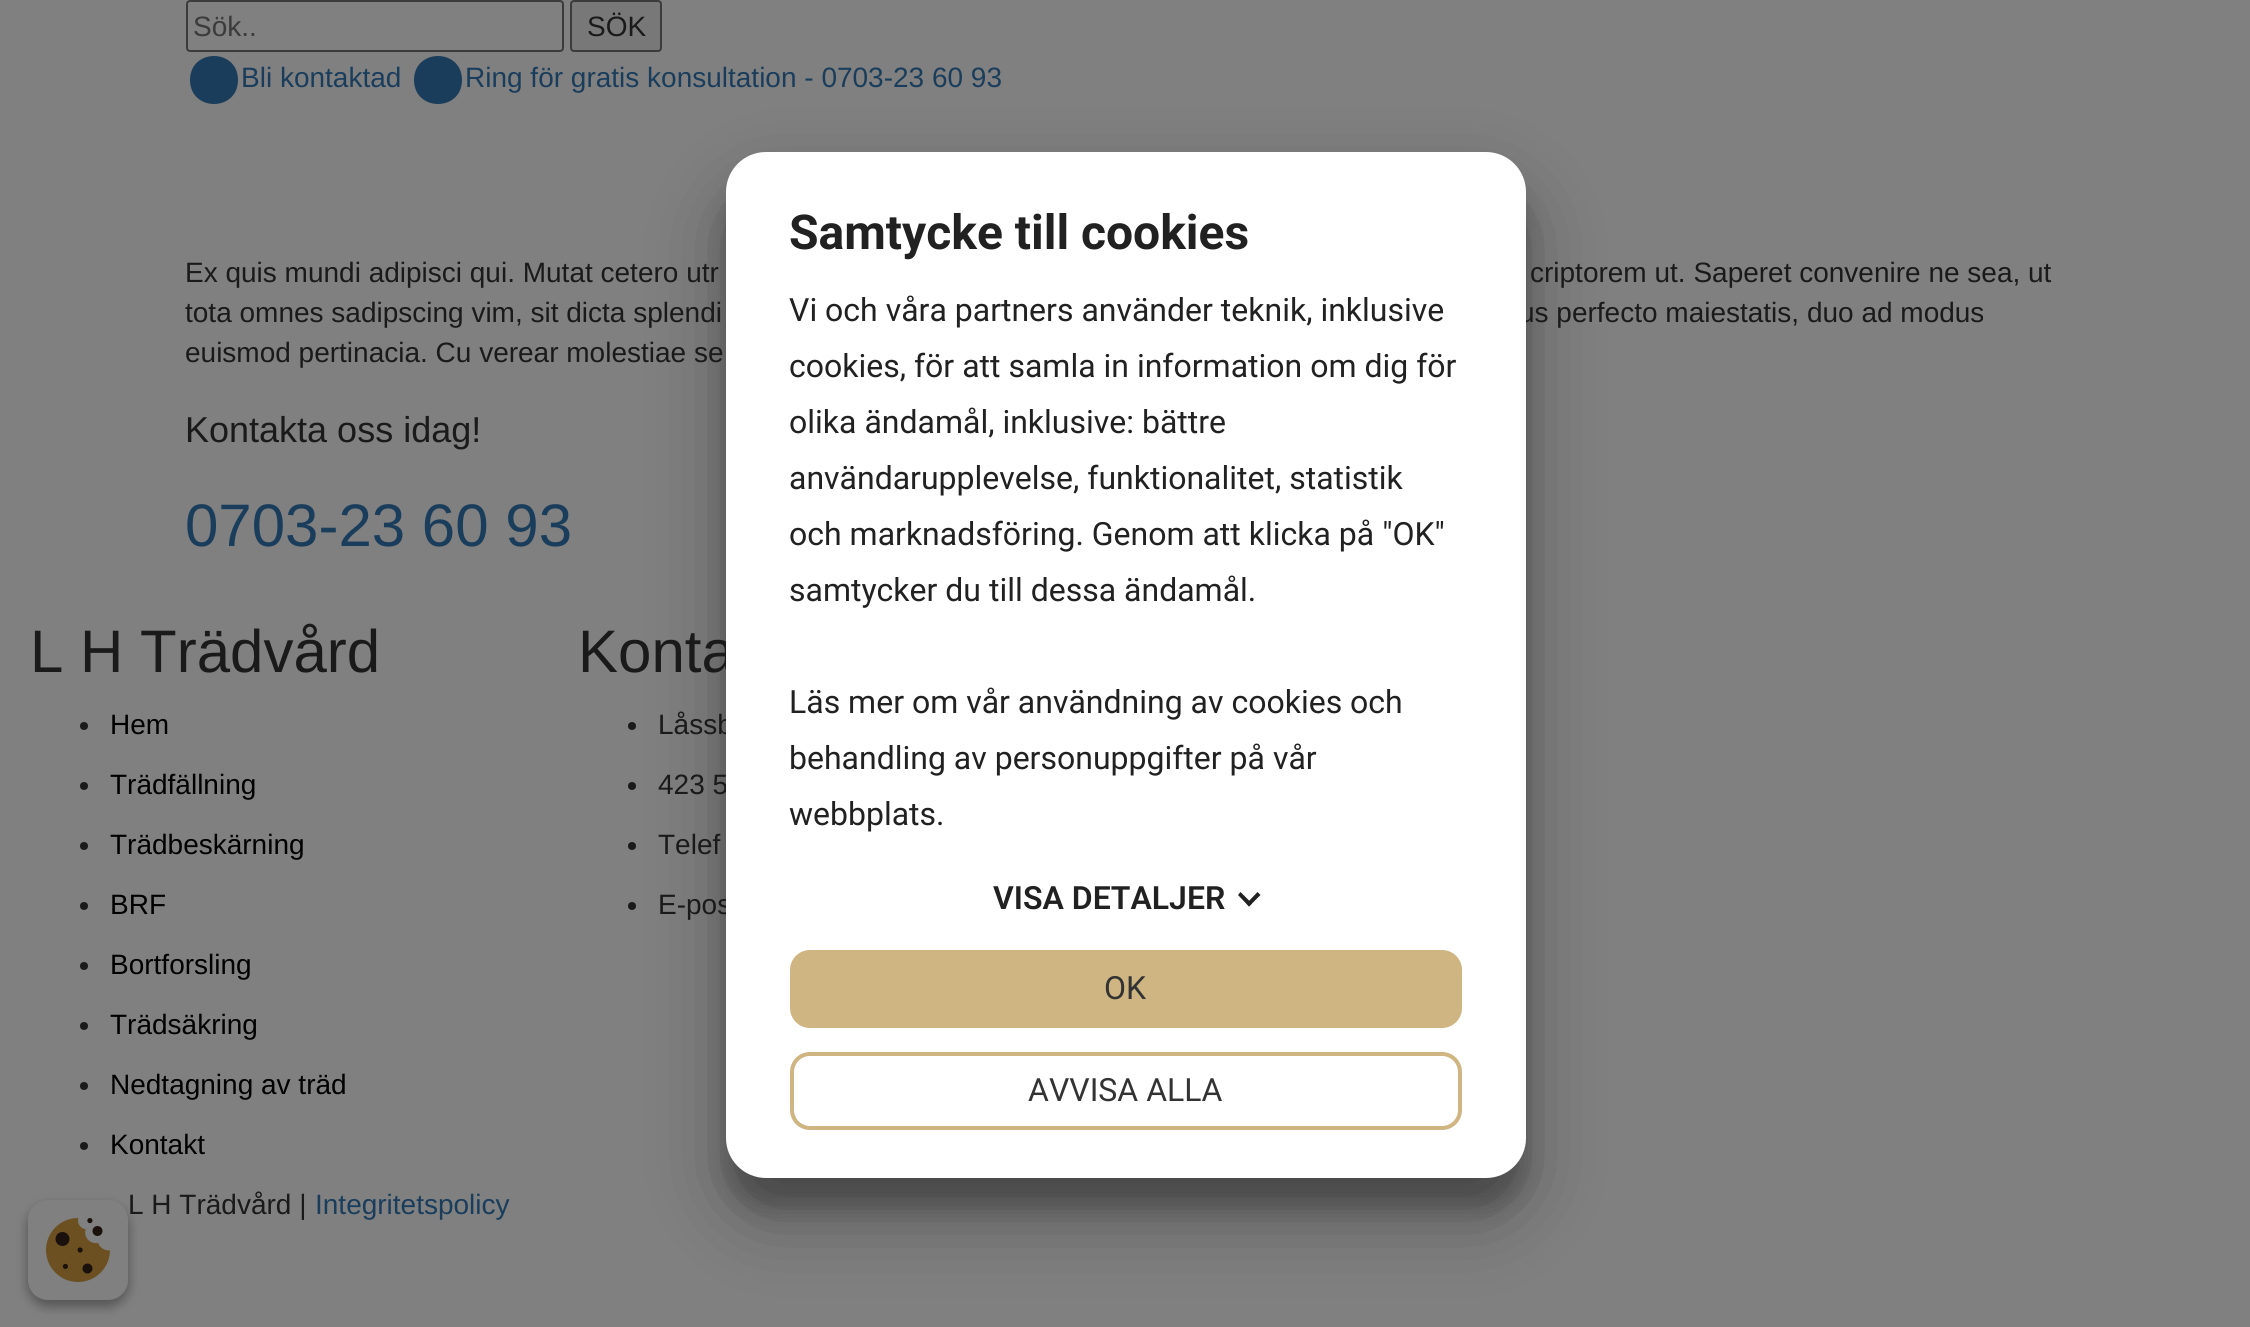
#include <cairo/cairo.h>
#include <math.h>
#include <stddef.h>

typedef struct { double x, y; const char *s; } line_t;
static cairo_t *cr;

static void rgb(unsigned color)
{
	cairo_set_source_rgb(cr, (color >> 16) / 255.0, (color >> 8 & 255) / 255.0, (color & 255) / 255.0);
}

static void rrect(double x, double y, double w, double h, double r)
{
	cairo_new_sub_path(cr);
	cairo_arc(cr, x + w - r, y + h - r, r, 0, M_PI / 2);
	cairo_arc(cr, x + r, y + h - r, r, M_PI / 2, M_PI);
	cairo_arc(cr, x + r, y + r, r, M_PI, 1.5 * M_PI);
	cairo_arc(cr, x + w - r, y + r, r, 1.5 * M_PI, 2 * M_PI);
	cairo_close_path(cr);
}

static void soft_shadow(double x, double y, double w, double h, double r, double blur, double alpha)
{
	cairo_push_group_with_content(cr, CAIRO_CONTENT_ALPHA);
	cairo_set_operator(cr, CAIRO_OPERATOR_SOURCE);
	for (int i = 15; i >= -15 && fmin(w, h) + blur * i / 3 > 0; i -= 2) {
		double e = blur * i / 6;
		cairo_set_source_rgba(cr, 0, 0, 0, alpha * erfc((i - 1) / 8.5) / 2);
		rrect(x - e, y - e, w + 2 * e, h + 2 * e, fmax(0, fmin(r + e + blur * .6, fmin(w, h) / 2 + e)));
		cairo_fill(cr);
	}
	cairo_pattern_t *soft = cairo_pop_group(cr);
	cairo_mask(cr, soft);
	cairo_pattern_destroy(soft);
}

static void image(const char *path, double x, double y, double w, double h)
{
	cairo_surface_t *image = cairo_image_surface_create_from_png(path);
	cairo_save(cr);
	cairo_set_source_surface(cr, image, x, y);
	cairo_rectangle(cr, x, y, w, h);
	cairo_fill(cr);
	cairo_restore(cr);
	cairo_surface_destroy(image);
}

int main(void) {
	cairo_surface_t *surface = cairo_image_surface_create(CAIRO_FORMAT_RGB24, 2250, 1327);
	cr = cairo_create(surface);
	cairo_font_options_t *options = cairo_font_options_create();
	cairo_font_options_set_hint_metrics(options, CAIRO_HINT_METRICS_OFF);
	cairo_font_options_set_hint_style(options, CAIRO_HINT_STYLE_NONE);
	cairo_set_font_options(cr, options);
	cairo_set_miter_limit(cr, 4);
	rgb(0x808080);
	cairo_paint(cr);
	rrect(187, 1, 376, 50, 3);
	rgb(0x3b3b3b);
	cairo_stroke(cr);
	rgb(0x787878);
	rrect(571, 1, 90, 50, 3);
	cairo_fill_preserve(cr);
	rgb(0x3b3b3b);
	cairo_stroke(cr);
	rgb(0x1a3d5c);
	cairo_new_path(cr);
	cairo_move_to(cr, 238, 80);
	cairo_curve_to(cr, 238, 48, 190, 48, 190, 80);
	cairo_curve_to(cr, 190, 112, 238, 112, 238, 80);
	cairo_close_path(cr);
	cairo_fill(cr);
	cairo_new_path(cr);
	cairo_move_to(cr, 462, 80);
	cairo_curve_to(cr, 462, 48, 414, 48, 414, 80);
	cairo_curve_to(cr, 414, 112, 462, 112, 462, 80);
	cairo_close_path(cr);
	cairo_fill(cr);
	rgb(0x1a1a1a);
	cairo_arc(cr, 84, 726, 4, 0, 2 * M_PI);
	cairo_fill(cr);
	cairo_arc(cr, 84, 786, 4, 0, 2 * M_PI);
	cairo_fill(cr);
	cairo_arc(cr, 84, 846, 4, 0, 2 * M_PI);
	cairo_fill(cr);
	cairo_arc(cr, 84, 906, 4, 0, 2 * M_PI);
	cairo_fill(cr);
	cairo_arc(cr, 84, 966, 4, 0, 2 * M_PI);
	cairo_fill(cr);
	cairo_arc(cr, 84, 1026, 4, 0, 2 * M_PI);
	cairo_fill(cr);
	cairo_arc(cr, 84, 1086, 4, 0, 2 * M_PI);
	cairo_fill(cr);
	cairo_arc(cr, 84, 1146, 4, 0, 2 * M_PI);
	cairo_fill(cr);
	cairo_arc(cr, 632, 726, 4, 0, 2 * M_PI);
	cairo_fill(cr);
	cairo_arc(cr, 632, 786, 4, 0, 2 * M_PI);
	cairo_fill(cr);
	cairo_arc(cr, 632, 846, 4, 0, 2 * M_PI);
	cairo_fill(cr);
	cairo_arc(cr, 632, 906, 4, 0, 2 * M_PI);
	cairo_fill(cr);
	rgb(0x000000);
	soft_shadow(726, 182, 800, 1026, 40, 12, 0.22);
	soft_shadow(726, 190, 800, 1026, 40, 38, 0.3);
	soft_shadow(28, 1206, 100, 100, 20, 6, 0.23);
	soft_shadow(28, 1206, 100, 100, 20, 6, 0.16);
	rgb(0x808080);
	rrect(28, 1200, 100, 100, 20);
	cairo_fill(cr);
	image("img/1.png", 46, 1218, 64, 64);
	cairo_select_font_face(cr, "Liberation Sans", CAIRO_FONT_SLANT_NORMAL, CAIRO_FONT_WEIGHT_NORMAL);
	cairo_set_font_size(cr, 28);
	rgb(0x3b3b3b);
	cairo_move_to(cr, 193, 36);
	cairo_show_text(cr, "Sök..");
	rgb(0x1a1a1a);
	cairo_move_to(cr, 587, 36);
	cairo_show_text(cr, "SÖK");
	rgb(0x1a3d5c);
	cairo_move_to(cr, 241, 87);
	cairo_show_text(cr, "Bli kontaktad");
	cairo_move_to(cr, 465, 87);
	cairo_show_text(cr, "Ring för gratis konsultation - 0703-23 60 93");
	rgb(0x1a1a1a);
	{
		static const line_t items[] = {
			{185, 282, "Ex quis mundi adipisci qui. Mutat cetero utr"},
			{1530, 282, "criptorem ut. Saperet convenire ne sea, ut"},
			{185, 322, "tota omnes sadipscing vim, sit dicta splendi"},
			{1519, 322, "us perfecto maiestatis, duo ad modus"},
			{185, 362, "euismod pertinacia. Cu verear molestiae se"},
		};
		for (size_t i = 0; i < sizeof items / sizeof *items; i++) {
			cairo_move_to(cr, items[i].x, items[i].y);
			cairo_show_text(cr, items[i].s);
		}
	}
	cairo_set_font_size(cr, 36);
	cairo_move_to(cr, 185, 442);
	cairo_show_text(cr, "Kontakta oss idag!");
	cairo_set_font_size(cr, 60);
	rgb(0x1a3d5c);
	cairo_move_to(cr, 185, 546);
	cairo_show_text(cr, "0703-23 60 93");
	rgb(0x1a1a1a);
	cairo_move_to(cr, 30, 672);
	cairo_show_text(cr, "L H Trädvård");
	cairo_set_font_size(cr, 28);
	rgb(0x000000);
	{
		static const line_t items[] = {
			{110, 734, "Hem"},
			{110, 794, "Trädfällning"},
			{110, 854, "Trädbeskärning"},
			{110, 914, "BRF"},
			{110, 974, "Bortforsling"},
			{110, 1034, "Trädsäkring"},
			{110, 1094, "Nedtagning av träd"},
			{110, 1154, "Kontakt"},
		};
		for (size_t i = 0; i < sizeof items / sizeof *items; i++) {
			cairo_move_to(cr, items[i].x, items[i].y);
			cairo_show_text(cr, items[i].s);
		}
	}
	cairo_set_font_size(cr, 60);
	rgb(0x1a1a1a);
	cairo_move_to(cr, 578, 672);
	cairo_show_text(cr, "Konta");
	cairo_set_font_size(cr, 28);
	{
		static const line_t items[] = {
			{658, 734, "Låssb"},
			{658, 794, "423 5"},
			{658, 854, "Telef"},
			{658, 914, "E-pos"},
			{128, 1214, "L H Trädvård |"},
		};
		for (size_t i = 0; i < sizeof items / sizeof *items; i++) {
			cairo_move_to(cr, items[i].x, items[i].y);
			cairo_show_text(cr, items[i].s);
		}
	}
	rgb(0x1a3d5c);
	cairo_move_to(cr, 315, 1214);
	cairo_show_text(cr, "Integritetspolicy");
	rgb(0xffffff);
	rrect(726, 152, 800, 1026, 40);
	cairo_fill(cr);
	cairo_select_font_face(cr, "Roboto", CAIRO_FONT_SLANT_NORMAL, CAIRO_FONT_WEIGHT_BOLD);
	cairo_set_font_size(cr, 48);
	rgb(0x212121);
	cairo_move_to(cr, 789, 249);
	cairo_show_text(cr, "Samtycke till cookies");
	cairo_select_font_face(cr, "Roboto", CAIRO_FONT_SLANT_NORMAL, CAIRO_FONT_WEIGHT_NORMAL);
	cairo_set_font_size(cr, 32);
	{
		static const line_t items[] = {
			{789, 321, "Vi och våra partners använder teknik, inklusive"},
			{789, 377, "cookies, för att samla in information om dig för"},
			{789, 433, "olika ändamål, inklusive: bättre"},
			{789, 489, "användarupplevelse, funktionalitet, statistik"},
			{789, 545, "och marknadsföring. Genom att klicka på \"OK\""},
			{789, 601, "samtycker du till dessa ändamål."},
			{789, 713, "Läs mer om vår användning av cookies och"},
			{789, 769, "behandling av personuppgifter på vår"},
			{789, 825, "webbplats."},
		};
		for (size_t i = 0; i < sizeof items / sizeof *items; i++) {
			cairo_move_to(cr, items[i].x, items[i].y);
			cairo_show_text(cr, items[i].s);
		}
	}
	cairo_select_font_face(cr, "Roboto SemiBold", CAIRO_FONT_SLANT_NORMAL, CAIRO_FONT_WEIGHT_NORMAL);
	cairo_move_to(cr, 993, 909);
	cairo_show_text(cr, "VISA DETALJER");
	cairo_new_path(cr);
	cairo_move_to(cr, 1257.5, 892);
	cairo_line_to(cr, 1260.5, 895);
	cairo_line_to(cr, 1249, 906.5);
	cairo_line_to(cr, 1246.5, 903.5);
	cairo_close_path(cr);
	cairo_fill(cr);
	cairo_new_path(cr);
	cairo_move_to(cr, 1240.5, 892);
	cairo_line_to(cr, 1252, 903.5);
	cairo_line_to(cr, 1249, 906.5);
	cairo_line_to(cr, 1238, 895);
	cairo_close_path(cr);
	cairo_fill(cr);
	rgb(0xceb582);
	rrect(792, 952, 668, 74, 18);
	cairo_fill_preserve(cr);
	cairo_set_line_width(cr, 4);
	cairo_stroke(cr);
	cairo_select_font_face(cr, "Roboto", CAIRO_FONT_SLANT_NORMAL, CAIRO_FONT_WEIGHT_NORMAL);
	rgb(0x333333);
	cairo_move_to(cr, 1104, 999);
	cairo_show_text(cr, "OK");
	rrect(792, 1054, 668, 74, 18);
	rgb(0xceb582);
	cairo_stroke(cr);
	rgb(0x333333);
	cairo_move_to(cr, 1028, 1101);
	cairo_show_text(cr, "AVVISA ALLA");
	cairo_surface_write_to_png(surface, "page.png");
	cairo_font_options_destroy(options);
	cairo_destroy(cr);
	cairo_surface_destroy(surface);
	return 0;
}
